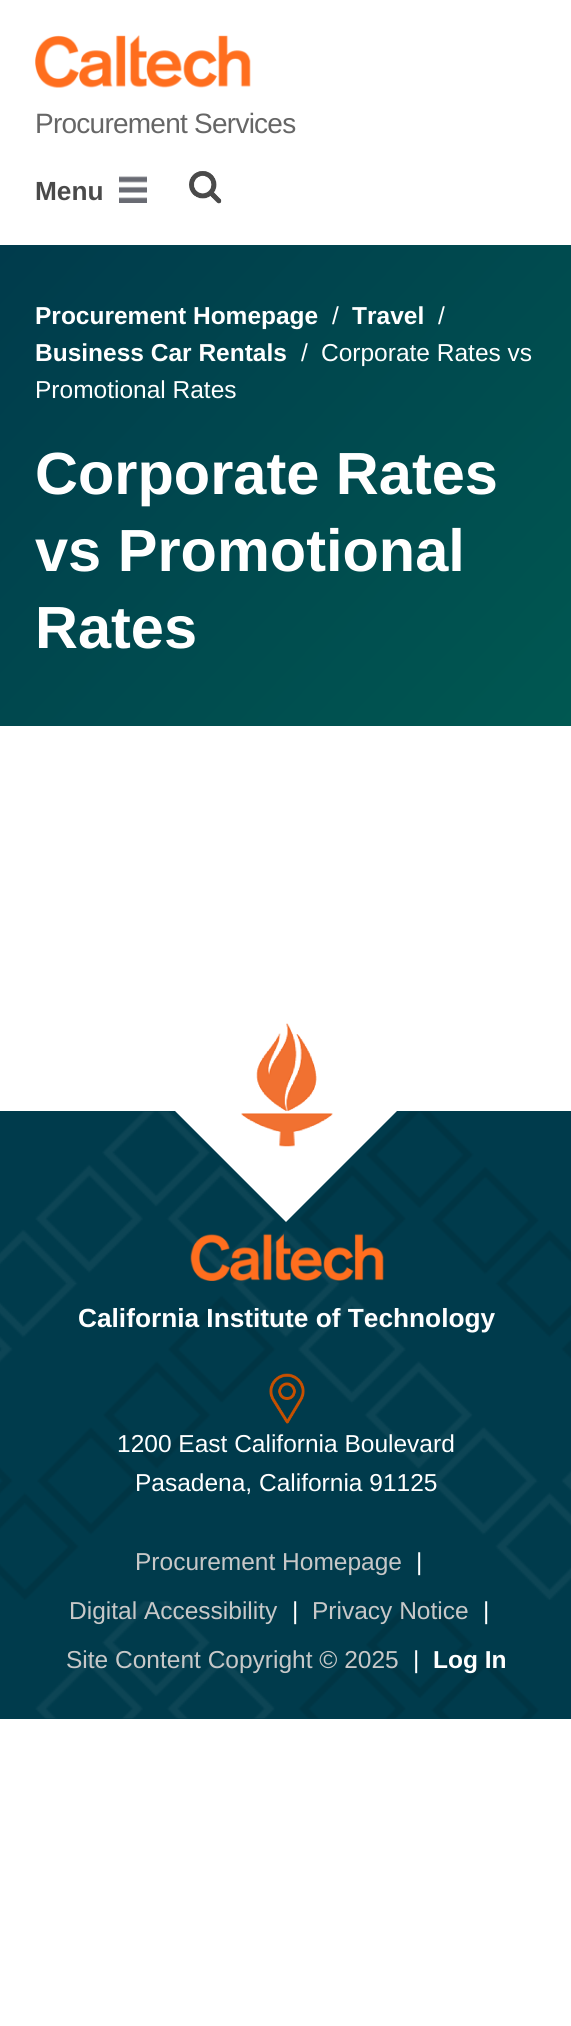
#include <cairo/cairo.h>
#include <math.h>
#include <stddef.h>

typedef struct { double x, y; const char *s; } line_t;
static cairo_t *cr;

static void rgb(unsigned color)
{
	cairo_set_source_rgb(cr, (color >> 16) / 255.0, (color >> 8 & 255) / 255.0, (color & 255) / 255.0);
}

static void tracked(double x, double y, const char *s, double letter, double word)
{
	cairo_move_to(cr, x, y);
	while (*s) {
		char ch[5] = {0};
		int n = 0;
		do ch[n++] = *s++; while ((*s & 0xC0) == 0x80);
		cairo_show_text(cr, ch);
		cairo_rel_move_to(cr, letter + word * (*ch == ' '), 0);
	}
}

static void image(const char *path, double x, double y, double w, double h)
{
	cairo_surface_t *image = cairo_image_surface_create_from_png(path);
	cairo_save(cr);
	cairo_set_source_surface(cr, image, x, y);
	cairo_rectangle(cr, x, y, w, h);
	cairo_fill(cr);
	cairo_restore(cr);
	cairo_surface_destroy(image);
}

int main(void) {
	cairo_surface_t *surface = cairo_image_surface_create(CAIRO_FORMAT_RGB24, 571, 2026);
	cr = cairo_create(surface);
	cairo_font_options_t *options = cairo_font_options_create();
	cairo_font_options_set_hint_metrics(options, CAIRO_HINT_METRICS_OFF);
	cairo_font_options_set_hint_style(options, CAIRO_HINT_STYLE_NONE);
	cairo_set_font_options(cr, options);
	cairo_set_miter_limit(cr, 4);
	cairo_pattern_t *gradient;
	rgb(0xffffff);
	cairo_paint(cr);
	image("img/1.png", 35, 35, 216, 53);
	image("img/2.png", 119, 176, 28, 27);
	image("img/3.png", 189, 171, 33, 33);
	gradient = cairo_pattern_create_linear(18, 227, 554, 745);
	cairo_pattern_add_color_stop_rgba(gradient, 0, 0, 0.231, 0.298, 1);
	cairo_pattern_add_color_stop_rgba(gradient, 1, 0, 0.345, 0.318, 1);
	cairo_set_source(cr, gradient);
	cairo_pattern_destroy(gradient);
	cairo_rectangle(cr, 0, 245, 571, 481);
	cairo_fill(cr);
	rgb(0x003b4c);
	cairo_rectangle(cr, 0, 1111, 571, 608);
	cairo_fill(cr);
	image("img/4.png", 0, 1111, 571, 608);
	rgb(0xffffff);
	cairo_new_path(cr);
	cairo_move_to(cr, 286, 999);
	cairo_line_to(cr, 397, 1111);
	cairo_line_to(cr, 286, 1222);
	cairo_line_to(cr, 175, 1111);
	cairo_close_path(cr);
	cairo_fill(cr);
	image("img/5.png", 241, 1023, 92, 124);
	image("img/6.png", 190, 1233, 194, 48);
	image("img/7.png", 269, 1373, 36, 51);
	cairo_select_font_face(cr, "Liberation Sans", CAIRO_FONT_SLANT_NORMAL, CAIRO_FONT_WEIGHT_NORMAL);
	cairo_set_font_size(cr, 28);
	rgb(0x666666);
	tracked(35, 133, "Procurement Services", -0.75, 0);
	cairo_select_font_face(cr, "Liberation Sans", CAIRO_FONT_SLANT_NORMAL, CAIRO_FONT_WEIGHT_BOLD);
	cairo_set_font_size(cr, 26.25);
	rgb(0x4a4a4a);
	cairo_move_to(cr, 35, 200);
	cairo_show_text(cr, "Menu");
	cairo_set_font_size(cr, 24.5);
	rgb(0xffffff);
	cairo_move_to(cr, 35, 324);
	cairo_show_text(cr, "Procurement Homepage");
	cairo_select_font_face(cr, "Liberation Sans", CAIRO_FONT_SLANT_NORMAL, CAIRO_FONT_WEIGHT_NORMAL);
	cairo_move_to(cr, 332, 324);
	cairo_show_text(cr, "/");
	cairo_select_font_face(cr, "Liberation Sans", CAIRO_FONT_SLANT_NORMAL, CAIRO_FONT_WEIGHT_BOLD);
	cairo_move_to(cr, 352, 324);
	cairo_show_text(cr, "Travel");
	cairo_select_font_face(cr, "Liberation Sans", CAIRO_FONT_SLANT_NORMAL, CAIRO_FONT_WEIGHT_NORMAL);
	cairo_move_to(cr, 438, 324);
	cairo_show_text(cr, "/");
	cairo_select_font_face(cr, "Liberation Sans", CAIRO_FONT_SLANT_NORMAL, CAIRO_FONT_WEIGHT_BOLD);
	cairo_move_to(cr, 35, 361);
	cairo_show_text(cr, "Business Car Rentals");
	cairo_select_font_face(cr, "Liberation Sans", CAIRO_FONT_SLANT_NORMAL, CAIRO_FONT_WEIGHT_NORMAL);
	{
		static const line_t items[] = {
			{301, 361, "/"},
			{321, 361, "Corporate Rates vs"},
			{35, 398, "Promotional Rates"},
		};
		for (size_t i = 0; i < sizeof items / sizeof *items; i++) {
			cairo_move_to(cr, items[i].x, items[i].y);
			cairo_show_text(cr, items[i].s);
		}
	}
	cairo_select_font_face(cr, "Liberation Sans", CAIRO_FONT_SLANT_NORMAL, CAIRO_FONT_WEIGHT_BOLD);
	cairo_set_font_size(cr, 59.5);
	{
		static const line_t items[] = {
			{35, 494, "Corporate Rates"},
			{35, 571, "vs Promotional"},
			{35, 648, "Rates"},
		};
		for (size_t i = 0; i < sizeof items / sizeof *items; i++) {
			cairo_move_to(cr, items[i].x, items[i].y);
			cairo_show_text(cr, items[i].s);
		}
	}
	cairo_set_font_size(cr, 26.25);
	cairo_move_to(cr, 78, 1327);
	cairo_show_text(cr, "California Institute of Technology");
	cairo_select_font_face(cr, "Liberation Sans", CAIRO_FONT_SLANT_NORMAL, CAIRO_FONT_WEIGHT_NORMAL);
	cairo_set_font_size(cr, 24.5);
	cairo_move_to(cr, 117, 1452);
	cairo_show_text(cr, "1200 East California Boulevard");
	cairo_move_to(cr, 135, 1491);
	cairo_show_text(cr, "Pasadena, California 91125");
	rgb(0xc8c8c8);
	cairo_move_to(cr, 135, 1570);
	cairo_show_text(cr, "Procurement Homepage");
	rgb(0xffffff);
	cairo_move_to(cr, 416, 1570);
	cairo_show_text(cr, "|");
	rgb(0xc8c8c8);
	cairo_move_to(cr, 69, 1619);
	cairo_show_text(cr, "Digital Accessibility");
	rgb(0xffffff);
	cairo_move_to(cr, 292, 1619);
	cairo_show_text(cr, "|");
	rgb(0xc8c8c8);
	cairo_move_to(cr, 312, 1619);
	cairo_show_text(cr, "Privacy Notice");
	rgb(0xffffff);
	cairo_move_to(cr, 483, 1619);
	cairo_show_text(cr, "|");
	rgb(0xc8c8c8);
	cairo_move_to(cr, 66, 1668);
	cairo_show_text(cr, "Site Content Copyright © 2025");
	rgb(0xffffff);
	cairo_move_to(cr, 413, 1668);
	cairo_show_text(cr, "|");
	cairo_select_font_face(cr, "Liberation Sans", CAIRO_FONT_SLANT_NORMAL, CAIRO_FONT_WEIGHT_BOLD);
	cairo_move_to(cr, 433, 1668);
	cairo_show_text(cr, "Log In");
	cairo_surface_write_to_png(surface, "page.png");
	cairo_font_options_destroy(options);
	cairo_destroy(cr);
	cairo_surface_destroy(surface);
	return 0;
}
